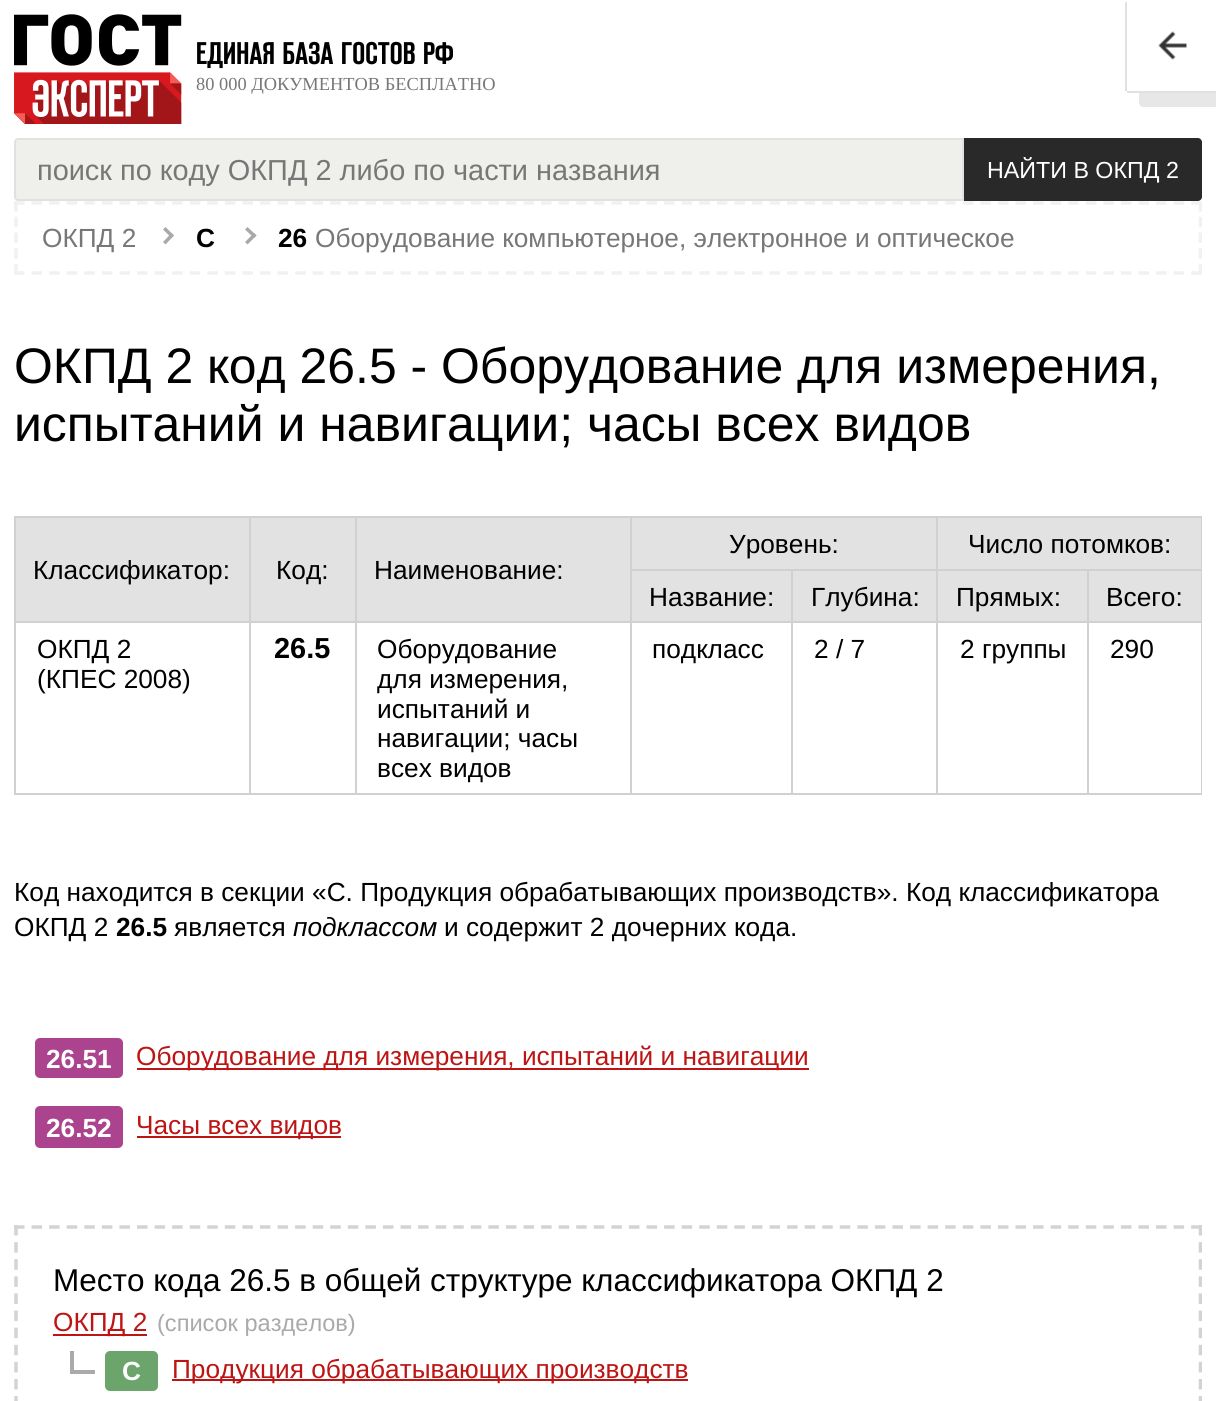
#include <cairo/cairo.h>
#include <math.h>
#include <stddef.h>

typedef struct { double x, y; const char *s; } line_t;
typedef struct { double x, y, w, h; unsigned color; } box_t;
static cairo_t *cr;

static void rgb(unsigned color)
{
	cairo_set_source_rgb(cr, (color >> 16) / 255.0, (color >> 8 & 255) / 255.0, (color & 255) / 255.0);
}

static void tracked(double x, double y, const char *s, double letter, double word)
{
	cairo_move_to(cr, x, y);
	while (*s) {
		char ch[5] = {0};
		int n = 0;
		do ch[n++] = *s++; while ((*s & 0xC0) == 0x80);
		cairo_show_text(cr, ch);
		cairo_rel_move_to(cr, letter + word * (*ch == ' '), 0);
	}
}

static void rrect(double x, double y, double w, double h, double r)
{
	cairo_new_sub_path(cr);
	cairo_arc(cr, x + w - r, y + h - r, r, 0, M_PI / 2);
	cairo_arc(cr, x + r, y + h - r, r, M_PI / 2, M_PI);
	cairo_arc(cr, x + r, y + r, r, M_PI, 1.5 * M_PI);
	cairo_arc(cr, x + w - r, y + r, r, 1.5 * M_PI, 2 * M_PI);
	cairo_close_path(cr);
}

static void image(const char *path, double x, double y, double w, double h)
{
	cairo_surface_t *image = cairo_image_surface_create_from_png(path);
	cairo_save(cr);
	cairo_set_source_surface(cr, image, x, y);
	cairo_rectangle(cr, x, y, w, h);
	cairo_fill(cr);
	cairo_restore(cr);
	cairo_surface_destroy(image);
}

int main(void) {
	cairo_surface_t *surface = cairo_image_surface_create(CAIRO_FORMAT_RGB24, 1216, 1401);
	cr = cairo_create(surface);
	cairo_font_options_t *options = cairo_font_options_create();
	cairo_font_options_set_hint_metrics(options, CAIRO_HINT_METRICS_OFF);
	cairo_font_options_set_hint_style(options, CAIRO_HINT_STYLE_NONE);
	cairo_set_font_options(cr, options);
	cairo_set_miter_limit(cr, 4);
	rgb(0xffffff);
	cairo_paint(cr);
	image("img/1.png", 14, 14, 168, 110);
	rgb(0xefefec);
	cairo_new_path(cr);
	cairo_move_to(cr, 18, 139);
	cairo_line_to(cr, 963, 139);
	cairo_line_to(cr, 963, 200);
	cairo_line_to(cr, 18, 200);
	cairo_curve_to(cr, 16.5, 200, 15, 198.5, 15, 197);
	cairo_line_to(cr, 15, 142);
	cairo_curve_to(cr, 15, 140.5, 16.5, 139, 18, 139);
	cairo_close_path(cr);
	cairo_fill_preserve(cr);
	rgb(0xe1e1e1);
	cairo_stroke(cr);
	rgb(0x292929);
	cairo_new_path(cr);
	cairo_move_to(cr, 964, 138);
	cairo_line_to(cr, 1198, 138);
	cairo_curve_to(cr, 1200, 138, 1202, 140, 1202, 142);
	cairo_line_to(cr, 1202, 197);
	cairo_curve_to(cr, 1202, 199, 1200, 201, 1198, 201);
	cairo_line_to(cr, 964, 201);
	cairo_close_path(cr);
	cairo_fill(cr);
	rgb(0xe7e7e7);
	cairo_new_path(cr);
	cairo_move_to(cr, 1139, 93);
	cairo_line_to(cr, 1139, 103);
	cairo_curve_to(cr, 1139, 105, 1141, 107, 1143, 107);
	cairo_line_to(cr, 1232, 107);
	cairo_line_to(cr, 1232, 14);
	cairo_line_to(cr, 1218, 14);
	cairo_line_to(cr, 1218, 93);
	cairo_close_path(cr);
	cairo_fill(cr);
	rgb(0xe1e1e1);
	cairo_rectangle(cr, 1127, 91, 89, 2);
	cairo_fill(cr);
	cairo_rectangle(cr, 1125, 2, 2, 89);
	cairo_fill(cr);
	image("img/2.png", 1158, 31, 29, 29);
	cairo_new_path(cr);
	cairo_move_to(cr, 14, 203);
	cairo_line_to(cr, 1202, 203);
	rgb(0xf1f1f1);
	cairo_set_line_width(cr, 3.5);
	cairo_set_dash(cr, (double[]){10.5, 7.07}, 2, 0);
	cairo_stroke(cr);
	cairo_save(cr);
	cairo_rectangle(cr, 14, 201, 1188, 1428);
	cairo_clip(cr);
	cairo_new_path(cr);
	cairo_move_to(cr, 1200.5, 201);
	cairo_line_to(cr, 1200.5, 275);
	cairo_set_dash(cr, (double[]){10.5, 5.25}, 2, 0);
	cairo_stroke(cr);
	cairo_restore(cr);
	cairo_new_path(cr);
	cairo_move_to(cr, 14, 273);
	cairo_line_to(cr, 1202, 273);
	cairo_stroke(cr);
	cairo_new_path(cr);
	cairo_move_to(cr, 16, 201);
	cairo_line_to(cr, 16, 275);
	cairo_set_dash(cr, (double[]){10.5, 5.25}, 2, 0);
	cairo_stroke(cr);
	rgb(0xa9a9a9);
	cairo_new_path(cr);
	cairo_move_to(cr, 174, 235.5);
	cairo_line_to(cr, 165.5, 244.5);
	cairo_line_to(cr, 163, 242);
	cairo_line_to(cr, 171.5, 233);
	cairo_close_path(cr);
	cairo_fill(cr);
	cairo_new_path(cr);
	cairo_move_to(cr, 174, 235.5);
	cairo_line_to(cr, 171.5, 238);
	cairo_line_to(cr, 163, 229.5);
	cairo_line_to(cr, 165.5, 227);
	cairo_close_path(cr);
	cairo_fill(cr);
	cairo_new_path(cr);
	cairo_move_to(cr, 256.5, 235.5);
	cairo_line_to(cr, 247.5, 244.5);
	cairo_line_to(cr, 245, 242);
	cairo_line_to(cr, 254, 233);
	cairo_close_path(cr);
	cairo_fill(cr);
	cairo_new_path(cr);
	cairo_move_to(cr, 256.5, 235.5);
	cairo_line_to(cr, 254, 238);
	cairo_line_to(cr, 245, 229.5);
	cairo_line_to(cr, 247.5, 227);
	cairo_close_path(cr);
	cairo_fill(cr);
	{
		static const box_t items[] = {
			{632, 518, 304, 51, 0xe2e2e2},
			{936, 516, 266, 2, 0xd1d1d1},
			{1087, 569, 115, 2, 0xd1d1d1},
			{1087, 621, 115, 2, 0xd1d1d1},
			{1201, 621, 1, 174, 0xd1d1d1},
			{1087, 793, 115, 2, 0xd1d1d1},
			{1087, 621, 2, 174, 0xd1d1d1},
			{936, 621, 153, 2, 0xd1d1d1},
			{1087, 569, 2, 54, 0xd1d1d1},
			{936, 569, 153, 2, 0xd1d1d1},
			{936, 793, 153, 2, 0xd1d1d1},
			{936, 621, 2, 174, 0xd1d1d1},
			{791, 621, 147, 2, 0xd1d1d1},
			{936, 569, 2, 54, 0xd1d1d1},
			{791, 569, 147, 2, 0xd1d1d1},
			{936, 516, 2, 55, 0xd1d1d1},
			{630, 516, 308, 2, 0xd1d1d1},
			{791, 793, 147, 2, 0xd1d1d1},
			{791, 621, 2, 174, 0xd1d1d1},
			{630, 621, 163, 2, 0xd1d1d1},
			{791, 569, 2, 54, 0xd1d1d1},
			{630, 569, 163, 2, 0xd1d1d1},
			{630, 793, 163, 2, 0xd1d1d1},
			{630, 621, 2, 174, 0xd1d1d1},
			{355, 621, 277, 2, 0xd1d1d1},
			{630, 569, 2, 54, 0xd1d1d1},
			{630, 516, 2, 55, 0xd1d1d1},
			{938, 518, 263, 51, 0xe2e2e2},
			{1201, 569, 1, 54, 0xd1d1d1},
			{1201, 516, 1, 55, 0xd1d1d1},
			{16, 518, 233, 103, 0xe2e2e2},
			{355, 516, 277, 2, 0xd1d1d1},
			{355, 793, 277, 2, 0xd1d1d1},
			{355, 621, 2, 174, 0xd1d1d1},
			{249, 621, 108, 2, 0xd1d1d1},
			{355, 516, 2, 107, 0xd1d1d1},
			{249, 516, 108, 2, 0xd1d1d1},
			{249, 793, 108, 2, 0xd1d1d1},
			{249, 621, 2, 174, 0xd1d1d1},
			{14, 621, 236, 2, 0xd1d1d1},
			{249, 516, 2, 107, 0xd1d1d1},
			{14, 516, 236, 2, 0xd1d1d1},
			{14, 793, 236, 2, 0xd1d1d1},
			{14, 621, 2, 174, 0xd1d1d1},
			{14, 516, 2, 107, 0xd1d1d1},
			{251, 518, 104, 103, 0xe2e2e2},
			{357, 518, 273, 103, 0xe2e2e2},
			{632, 571, 159, 50, 0xe2e2e2},
			{793, 571, 143, 50, 0xe2e2e2},
			{938, 571, 149, 50, 0xe2e2e2},
			{1089, 571, 112, 50, 0xe2e2e2},
		};
		for (size_t i = 0; i < sizeof items / sizeof *items; i++) {
			rgb(items[i].color);
			cairo_rectangle(cr, items[i].x, items[i].y, items[i].w, items[i].h);
			cairo_fill(cr);
		}
	}
	rgb(0xab438e);
	rrect(35, 1038, 88, 40, 5);
	cairo_fill(cr);
	rgb(0xbd1414);
	cairo_rectangle(cr, 137, 1068, 672, 2);
	cairo_fill(cr);
	rgb(0xab438e);
	rrect(35, 1106, 88, 42, 5);
	cairo_fill(cr);
	rgb(0xbd1414);
	cairo_rectangle(cr, 137, 1136, 204, 2);
	cairo_fill(cr);
	cairo_new_path(cr);
	cairo_move_to(cr, 14, 1227);
	cairo_line_to(cr, 1202, 1227);
	rgb(0xd3d3d3);
	cairo_set_dash(cr, (double[]){10.5, 7.07}, 2, 0);
	cairo_stroke(cr);
	cairo_save(cr);
	cairo_rectangle(cr, 14, 201, 1188, 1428);
	cairo_clip(cr);
	cairo_new_path(cr);
	cairo_move_to(cr, 1200.5, 1225);
	cairo_line_to(cr, 1200.5, 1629);
	cairo_set_dash(cr, (double[]){10.5, 6.61}, 2, 0);
	cairo_stroke(cr);
	cairo_restore(cr);
	cairo_new_path(cr);
	cairo_move_to(cr, 16, 1225);
	cairo_line_to(cr, 16, 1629);
	cairo_set_dash(cr, (double[]){10.5, 6.61}, 2, 0);
	cairo_stroke(cr);
	{
		static const box_t items[] = {
			{53, 1334, 94, 2, 0xbd1414},
			{70, 1370, 25, 4, 0xaaaaaa},
			{70, 1351, 4, 21, 0xaaaaaa},
		};
		for (size_t i = 0; i < sizeof items / sizeof *items; i++) {
			rgb(items[i].color);
			cairo_rectangle(cr, items[i].x, items[i].y, items[i].w, items[i].h);
			cairo_fill(cr);
		}
	}
	rgb(0x6ca56c);
	rrect(105, 1351, 53, 40, 5);
	cairo_fill(cr);
	rgb(0xbd1414);
	cairo_rectangle(cr, 172, 1379, 516, 2);
	cairo_fill(cr);
	cairo_select_font_face(cr, "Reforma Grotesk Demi", CAIRO_FONT_SLANT_NORMAL, CAIRO_FONT_WEIGHT_NORMAL);
	cairo_set_font_size(cr, 31.25);
	rgb(0x000000);
	tracked(196, 64, "ЕДИНАЯ БАЗА ГОСТОВ РФ", 0.25, 0);
	cairo_select_font_face(cr, "Liberation Serif", CAIRO_FONT_SLANT_NORMAL, CAIRO_FONT_WEIGHT_NORMAL);
	cairo_set_font_size(cr, 18.4);
	rgb(0x777777);
	cairo_move_to(cr, 196, 90);
	cairo_show_text(cr, "80 000 ДОКУМЕНТОВ БЕСПЛАТНО");
	cairo_select_font_face(cr, "Liberation Sans", CAIRO_FONT_SLANT_NORMAL, CAIRO_FONT_WEIGHT_NORMAL);
	cairo_set_font_size(cr, 28.9);
	cairo_move_to(cr, 37, 180);
	cairo_show_text(cr, "поиск по коду ОКПД 2 либо по части названия");
	cairo_set_font_size(cr, 23.25);
	rgb(0xffffff);
	cairo_move_to(cr, 987, 178);
	cairo_show_text(cr, "НАЙТИ В ОКПД 2");
	cairo_set_font_size(cr, 26.25);
	rgb(0x777777);
	cairo_move_to(cr, 42, 247);
	cairo_show_text(cr, "ОКПД 2");
	cairo_select_font_face(cr, "Liberation Sans", CAIRO_FONT_SLANT_NORMAL, CAIRO_FONT_WEIGHT_BOLD);
	rgb(0x000000);
	cairo_move_to(cr, 196, 247);
	cairo_show_text(cr, "C");
	cairo_move_to(cr, 278, 247);
	cairo_show_text(cr, "26");
	cairo_select_font_face(cr, "Liberation Sans", CAIRO_FONT_SLANT_NORMAL, CAIRO_FONT_WEIGHT_NORMAL);
	rgb(0x777777);
	cairo_move_to(cr, 315, 247);
	cairo_show_text(cr, "Оборудование компьютерное, электронное и оптическое");
	cairo_set_font_size(cr, 49.9);
	rgb(0x000000);
	cairo_move_to(cr, 14, 383);
	cairo_show_text(cr, "ОКПД 2 код 26.5 - Оборудование для измерения,");
	cairo_move_to(cr, 14, 441);
	cairo_show_text(cr, "испытаний и навигации; часы всех видов");
	cairo_set_font_size(cr, 26.25);
	{
		static const line_t items[] = {
			{729, 553, "Уровень:"},
			{968, 553, "Число потомков:"},
			{33, 579, "Классификатор:"},
			{276, 579, "Код:"},
			{374, 579, "Наименование:"},
			{649, 606, "Название:"},
			{811, 606, "Глубина:"},
			{956, 606, "Прямых:"},
			{1106, 606, "Всего:"},
			{37, 658, "ОКПД 2"},
			{37, 688, "(КПЕС 2008)"},
		};
		for (size_t i = 0; i < sizeof items / sizeof *items; i++) {
			cairo_move_to(cr, items[i].x, items[i].y);
			cairo_show_text(cr, items[i].s);
		}
	}
	cairo_select_font_face(cr, "Liberation Sans", CAIRO_FONT_SLANT_NORMAL, CAIRO_FONT_WEIGHT_BOLD);
	cairo_set_font_size(cr, 28.9);
	cairo_move_to(cr, 274, 658);
	cairo_show_text(cr, "26.5");
	cairo_select_font_face(cr, "Liberation Sans", CAIRO_FONT_SLANT_NORMAL, CAIRO_FONT_WEIGHT_NORMAL);
	cairo_set_font_size(cr, 26.25);
	{
		static const line_t items[] = {
			{377, 658, "Оборудование"},
			{377, 688, "для измерения,"},
			{377, 718, "испытаний и"},
			{377, 747, "навигации; часы"},
			{377, 777, "всех видов"},
			{652, 658, "подкласс"},
			{814, 658, "2 / 7"},
			{960, 658, "2 группы"},
			{1110, 658, "290"},
			{14, 901, "Код находится в секции «C. Продукция обрабатывающих производств». Код классификатора"},
			{14, 936, "ОКПД 2"},
		};
		for (size_t i = 0; i < sizeof items / sizeof *items; i++) {
			cairo_move_to(cr, items[i].x, items[i].y);
			cairo_show_text(cr, items[i].s);
		}
	}
	cairo_select_font_face(cr, "Liberation Sans", CAIRO_FONT_SLANT_NORMAL, CAIRO_FONT_WEIGHT_BOLD);
	cairo_move_to(cr, 116, 936);
	cairo_show_text(cr, "26.5");
	cairo_select_font_face(cr, "Liberation Sans", CAIRO_FONT_SLANT_NORMAL, CAIRO_FONT_WEIGHT_NORMAL);
	cairo_move_to(cr, 174, 936);
	cairo_show_text(cr, "является");
	cairo_select_font_face(cr, "Liberation Sans", CAIRO_FONT_SLANT_ITALIC, CAIRO_FONT_WEIGHT_NORMAL);
	cairo_move_to(cr, 293, 936);
	cairo_show_text(cr, "подклассом");
	cairo_select_font_face(cr, "Liberation Sans", CAIRO_FONT_SLANT_NORMAL, CAIRO_FONT_WEIGHT_NORMAL);
	cairo_move_to(cr, 444, 936);
	cairo_show_text(cr, "и содержит 2 дочерних кода.");
	cairo_select_font_face(cr, "Liberation Sans", CAIRO_FONT_SLANT_NORMAL, CAIRO_FONT_WEIGHT_BOLD);
	rgb(0xffffff);
	cairo_move_to(cr, 46, 1068);
	cairo_show_text(cr, "26.51");
	cairo_select_font_face(cr, "Liberation Sans", CAIRO_FONT_SLANT_NORMAL, CAIRO_FONT_WEIGHT_NORMAL);
	rgb(0xbd1414);
	cairo_move_to(cr, 136, 1065);
	cairo_show_text(cr, "Оборудование для измерения, испытаний и навигации");
	cairo_select_font_face(cr, "Liberation Sans", CAIRO_FONT_SLANT_NORMAL, CAIRO_FONT_WEIGHT_BOLD);
	rgb(0xffffff);
	cairo_move_to(cr, 46, 1137);
	cairo_show_text(cr, "26.52");
	cairo_select_font_face(cr, "Liberation Sans", CAIRO_FONT_SLANT_NORMAL, CAIRO_FONT_WEIGHT_NORMAL);
	rgb(0xbd1414);
	cairo_move_to(cr, 136, 1134);
	cairo_show_text(cr, "Часы всех видов");
	cairo_set_font_size(cr, 31.5);
	rgb(0x000000);
	cairo_move_to(cr, 53, 1291);
	cairo_show_text(cr, "Место кода 26.5 в общей структуре классификатора ОКПД 2");
	cairo_set_font_size(cr, 26.25);
	rgb(0xbd1414);
	cairo_move_to(cr, 53, 1331);
	cairo_show_text(cr, "ОКПД 2");
	cairo_set_font_size(cr, 23.6);
	rgb(0xaaaaaa);
	cairo_move_to(cr, 157, 1331);
	cairo_show_text(cr, "(список разделов)");
	cairo_select_font_face(cr, "Liberation Sans", CAIRO_FONT_SLANT_NORMAL, CAIRO_FONT_WEIGHT_BOLD);
	cairo_set_font_size(cr, 26.25);
	rgb(0xffffff);
	cairo_move_to(cr, 122, 1380);
	cairo_show_text(cr, "C");
	cairo_select_font_face(cr, "Liberation Sans", CAIRO_FONT_SLANT_NORMAL, CAIRO_FONT_WEIGHT_NORMAL);
	rgb(0xbd1414);
	cairo_move_to(cr, 172, 1378);
	cairo_show_text(cr, "Продукция обрабатывающих производств");
	cairo_surface_write_to_png(surface, "page.png");
	cairo_font_options_destroy(options);
	cairo_destroy(cr);
	cairo_surface_destroy(surface);
	return 0;
}
